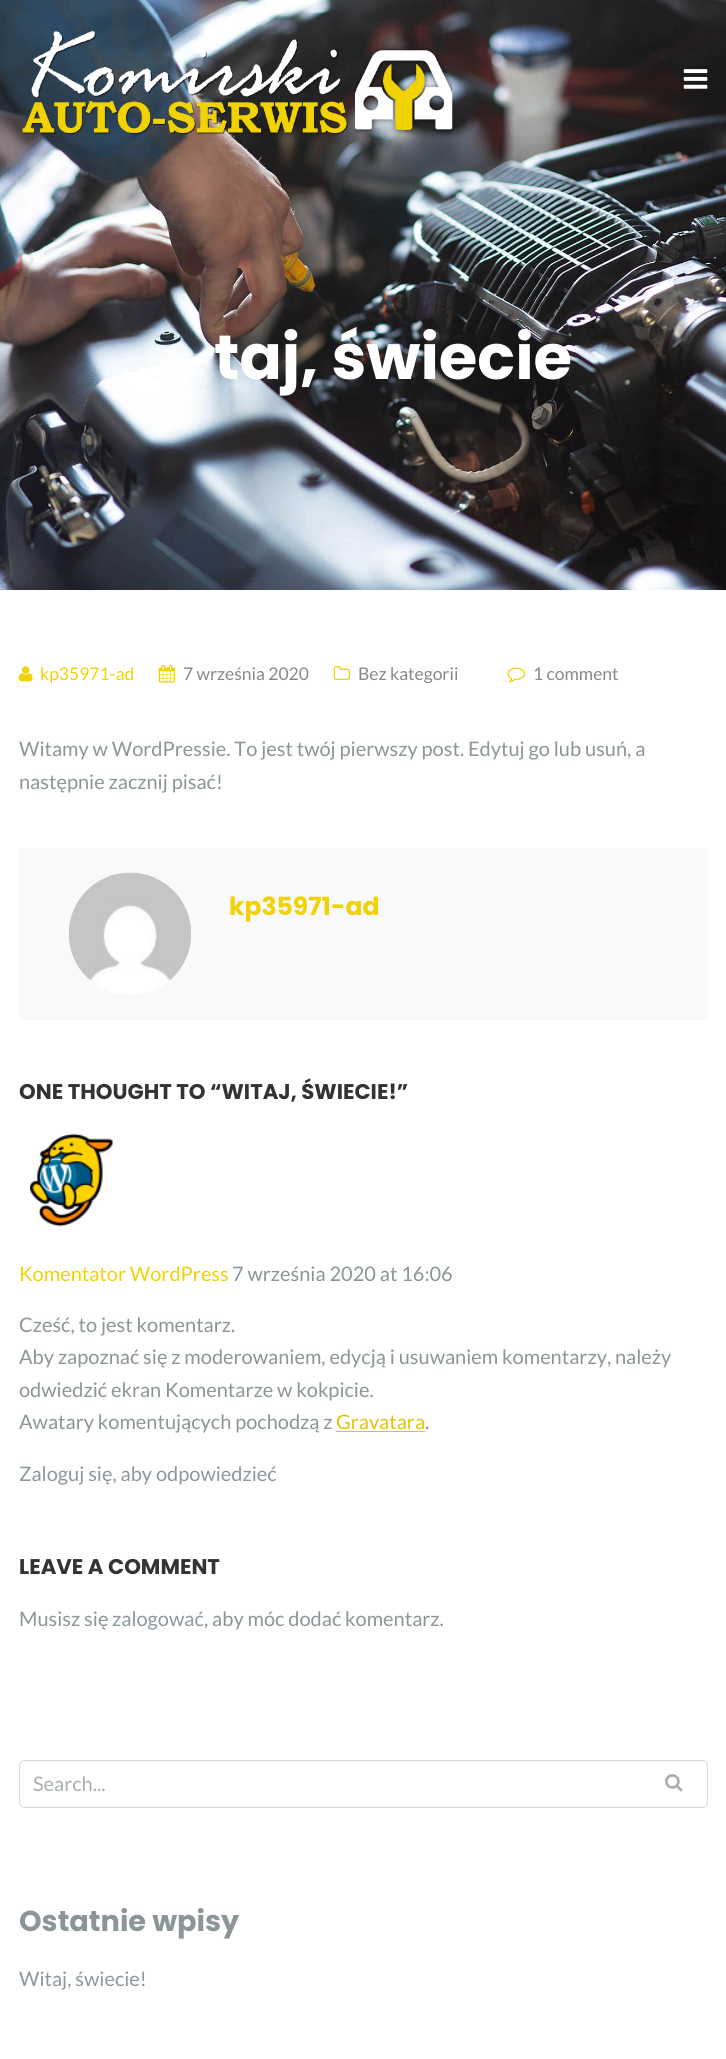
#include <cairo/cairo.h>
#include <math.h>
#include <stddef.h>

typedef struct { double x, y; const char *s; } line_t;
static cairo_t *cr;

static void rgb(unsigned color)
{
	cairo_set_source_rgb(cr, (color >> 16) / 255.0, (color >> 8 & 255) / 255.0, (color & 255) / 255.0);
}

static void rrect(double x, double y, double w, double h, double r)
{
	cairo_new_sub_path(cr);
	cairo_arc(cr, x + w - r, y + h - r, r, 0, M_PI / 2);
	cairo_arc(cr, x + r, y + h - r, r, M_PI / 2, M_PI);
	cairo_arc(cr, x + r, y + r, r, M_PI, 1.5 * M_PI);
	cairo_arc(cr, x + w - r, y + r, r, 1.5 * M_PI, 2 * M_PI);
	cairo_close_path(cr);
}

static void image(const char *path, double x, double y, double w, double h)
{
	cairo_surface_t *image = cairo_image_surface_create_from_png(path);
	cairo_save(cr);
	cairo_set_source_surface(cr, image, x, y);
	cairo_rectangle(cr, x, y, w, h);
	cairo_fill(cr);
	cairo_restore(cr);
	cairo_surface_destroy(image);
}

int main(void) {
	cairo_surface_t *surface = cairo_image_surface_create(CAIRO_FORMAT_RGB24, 726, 2059);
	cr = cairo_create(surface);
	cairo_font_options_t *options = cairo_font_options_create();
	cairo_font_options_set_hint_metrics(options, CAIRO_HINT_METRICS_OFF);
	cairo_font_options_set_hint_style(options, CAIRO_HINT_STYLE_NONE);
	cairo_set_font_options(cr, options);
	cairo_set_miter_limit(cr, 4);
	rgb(0xffffff);
	cairo_paint(cr);
	image("img/1.png", 0, 0, 726, 590);
	image("img/2.png", 22, 30, 431, 105);
	image("img/3.png", 683, 69, 25, 20);
	image("img/4.png", 18, 666, 15, 16);
	image("img/5.png", 158, 665, 17, 18);
	image("img/6.png", 333, 666, 17, 14);
	image("img/7.png", 507, 667, 18, 16);
	rgb(0xf9f9f9);
	cairo_rectangle(cr, 19, 848, 689, 172);
	cairo_fill(cr);
	image("img/8.png", 69, 872, 122, 123);
	image("img/9.png", 29, 1133, 85, 94);
	rgb(0xe2c504);
	cairo_rectangle(cr, 336, 1431, 89, 1);
	cairo_fill(cr);
	rrect(19.5, 1760.5, 688, 47, 5.5);
	rgb(0xd7d7d7);
	cairo_set_line_width(cr, 1);
	cairo_stroke(cr);
	image("img/10.png", 665, 1774, 18, 18);
	cairo_select_font_face(cr, "Poppins", CAIRO_FONT_SLANT_NORMAL, CAIRO_FONT_WEIGHT_BOLD);
	cairo_set_font_size(cr, 62.5);
	rgb(0xffffff);
	cairo_move_to(cr, 214, 379);
	cairo_show_text(cr, "taj, świecie");
	cairo_select_font_face(cr, "Lato", CAIRO_FONT_SLANT_NORMAL, CAIRO_FONT_WEIGHT_NORMAL);
	cairo_set_font_size(cr, 17.5);
	rgb(0xf1d204);
	cairo_move_to(cr, 40, 680);
	cairo_show_text(cr, "kp35971-ad");
	rgb(0x888888);
	{
		static const line_t items[] = {
			{183, 680, "7 września 2020"},
			{358, 680, "Bez kategorii"},
			{533, 680, "1 comment"},
		};
		for (size_t i = 0; i < sizeof items / sizeof *items; i++) {
			cairo_move_to(cr, items[i].x, items[i].y);
			cairo_show_text(cr, items[i].s);
		}
	}
	cairo_set_font_size(cr, 20);
	rgb(0x8c9597);
	cairo_move_to(cr, 19, 756);
	cairo_show_text(cr, "Witamy w WordPressie. To jest twój pierwszy post. Edytuj go lub usuń, a");
	cairo_move_to(cr, 19, 789);
	cairo_show_text(cr, "następnie zacznij pisać!");
	cairo_select_font_face(cr, "Poppins", CAIRO_FONT_SLANT_NORMAL, CAIRO_FONT_WEIGHT_BOLD);
	cairo_set_font_size(cr, 25);
	rgb(0xf1d204);
	cairo_move_to(cr, 229, 915);
	cairo_show_text(cr, "kp35971-ad");
	cairo_set_font_size(cr, 21.25);
	rgb(0x333333);
	cairo_move_to(cr, 19, 1099);
	cairo_show_text(cr, "ONE THOUGHT TO “WITAJ, ŚWIECIE!”");
	cairo_select_font_face(cr, "Lato", CAIRO_FONT_SLANT_NORMAL, CAIRO_FONT_WEIGHT_NORMAL);
	cairo_set_font_size(cr, 20);
	rgb(0xf1d204);
	cairo_move_to(cr, 19, 1281);
	cairo_show_text(cr, "Komentator WordPress");
	rgb(0x8c9597);
	{
		static const line_t items[] = {
			{232, 1281, "7 września 2020 at 16:06"},
			{19, 1332, "Cześć, to jest komentarz."},
			{19, 1364, "Aby zapoznać się z moderowaniem, edycją i usuwaniem komentarzy, należy"},
			{19, 1397, "odwiedzić ekran Komentarze w kokpicie."},
			{19, 1429, "Awatary komentujących pochodzą z"},
		};
		for (size_t i = 0; i < sizeof items / sizeof *items; i++) {
			cairo_move_to(cr, items[i].x, items[i].y);
			cairo_show_text(cr, items[i].s);
		}
	}
	rgb(0xe2c504);
	cairo_move_to(cr, 336, 1429);
	cairo_show_text(cr, "Gravatara");
	rgb(0x8c9597);
	cairo_move_to(cr, 425, 1429);
	cairo_show_text(cr, ".");
	rgb(0x8c979e);
	cairo_move_to(cr, 19, 1481);
	cairo_show_text(cr, "Zaloguj się, aby odpowiedzieć");
	cairo_select_font_face(cr, "Poppins", CAIRO_FONT_SLANT_NORMAL, CAIRO_FONT_WEIGHT_BOLD);
	cairo_set_font_size(cr, 21.25);
	rgb(0x333333);
	cairo_move_to(cr, 19, 1574);
	cairo_show_text(cr, "LEAVE A COMMENT");
	cairo_select_font_face(cr, "Lato", CAIRO_FONT_SLANT_NORMAL, CAIRO_FONT_WEIGHT_NORMAL);
	cairo_set_font_size(cr, 20);
	rgb(0x8c9597);
	cairo_move_to(cr, 19, 1626);
	cairo_show_text(cr, "Musisz się");
	rgb(0x8c979e);
	cairo_move_to(cr, 112, 1626);
	cairo_show_text(cr, "zalogować");
	rgb(0x8c9597);
	cairo_move_to(cr, 204, 1626);
	cairo_show_text(cr, ", aby móc dodać komentarz.");
	rgb(0xa9afb1);
	cairo_move_to(cr, 33, 1791);
	cairo_show_text(cr, "Search...");
	cairo_select_font_face(cr, "Poppins", CAIRO_FONT_SLANT_NORMAL, CAIRO_FONT_WEIGHT_BOLD);
	cairo_set_font_size(cr, 28.75);
	rgb(0x8c9597);
	cairo_move_to(cr, 19, 1931);
	cairo_show_text(cr, "Ostatnie wpisy");
	cairo_select_font_face(cr, "Lato", CAIRO_FONT_SLANT_NORMAL, CAIRO_FONT_WEIGHT_NORMAL);
	cairo_set_font_size(cr, 20);
	rgb(0x8c979e);
	cairo_move_to(cr, 19, 1986);
	cairo_show_text(cr, "Witaj, świecie!");
	cairo_surface_write_to_png(surface, "page.png");
	cairo_font_options_destroy(options);
	cairo_destroy(cr);
	cairo_surface_destroy(surface);
	return 0;
}
